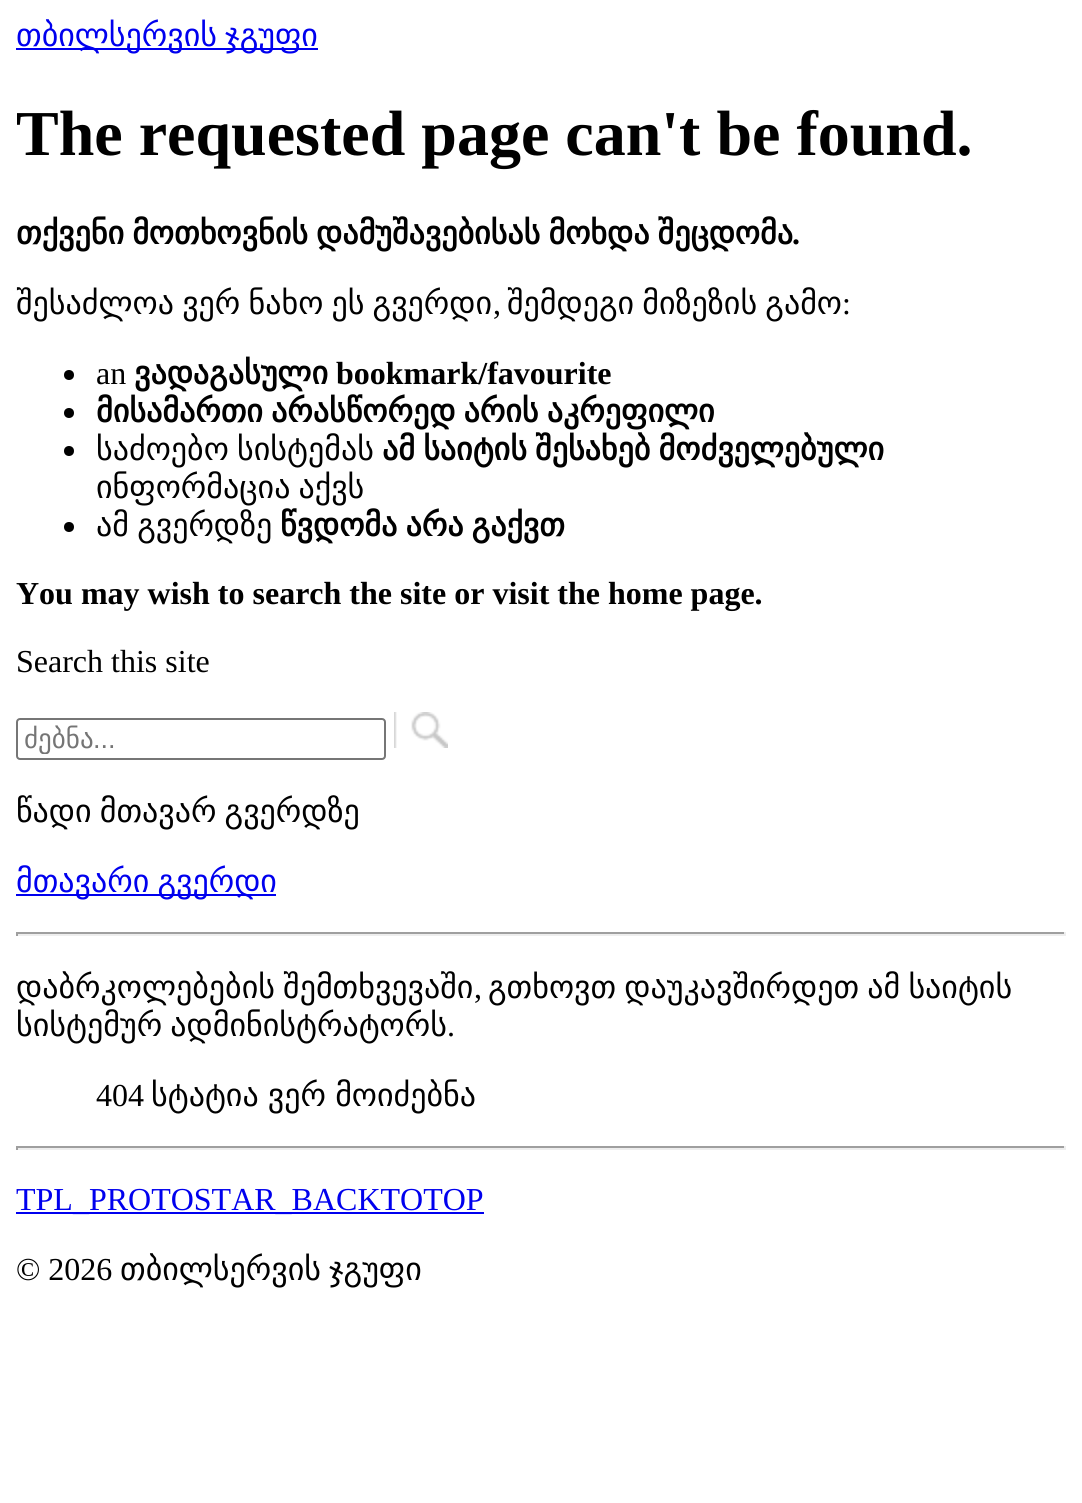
#include <cairo/cairo.h>
#include <math.h>
#include <stddef.h>

typedef struct { double x, y, w, h; unsigned color; } box_t;
static cairo_t *cr;

static void rgb(unsigned color)
{
	cairo_set_source_rgb(cr, (color >> 16) / 255.0, (color >> 8 & 255) / 255.0, (color & 255) / 255.0);
}

static void tracked(double x, double y, const char *s, double letter, double word)
{
	cairo_move_to(cr, x, y);
	while (*s) {
		char ch[5] = {0};
		int n = 0;
		do ch[n++] = *s++; while ((*s & 0xC0) == 0x80);
		cairo_show_text(cr, ch);
		cairo_rel_move_to(cr, letter + word * (*ch == ' '), 0);
	}
}

static void rrect(double x, double y, double w, double h, double r)
{
	cairo_new_sub_path(cr);
	cairo_arc(cr, x + w - r, y + h - r, r, 0, M_PI / 2);
	cairo_arc(cr, x + r, y + h - r, r, M_PI / 2, M_PI);
	cairo_arc(cr, x + r, y + r, r, M_PI, 1.5 * M_PI);
	cairo_arc(cr, x + w - r, y + r, r, 1.5 * M_PI, 2 * M_PI);
	cairo_close_path(cr);
}

static void image(const char *path, double x, double y, double w, double h)
{
	cairo_surface_t *image = cairo_image_surface_create_from_png(path);
	cairo_save(cr);
	cairo_set_source_surface(cr, image, x, y);
	cairo_rectangle(cr, x, y, w, h);
	cairo_fill(cr);
	cairo_restore(cr);
	cairo_surface_destroy(image);
}

int main(void) {
	cairo_surface_t *surface = cairo_image_surface_create(CAIRO_FORMAT_RGB24, 1082, 1503);
	cr = cairo_create(surface);
	cairo_font_options_t *options = cairo_font_options_create();
	cairo_font_options_set_hint_metrics(options, CAIRO_HINT_METRICS_OFF);
	cairo_font_options_set_hint_style(options, CAIRO_HINT_STYLE_NONE);
	cairo_set_font_options(cr, options);
	cairo_set_miter_limit(cr, 4);
	rgb(0xffffff);
	cairo_paint(cr);
	rgb(0x0000ee);
	cairo_rectangle(cr, 16, 48, 302, 2);
	cairo_fill(cr);
	rgb(0x000000);
	cairo_arc(cr, 69, 375, 5, 0, 2 * M_PI);
	cairo_fill(cr);
	cairo_arc(cr, 69, 413, 5, 0, 2 * M_PI);
	cairo_fill(cr);
	cairo_arc(cr, 69, 451, 5, 0, 2 * M_PI);
	cairo_fill(cr);
	cairo_arc(cr, 69, 527, 5, 0, 2 * M_PI);
	cairo_fill(cr);
	rrect(17, 719, 368, 40, 3);
	rgb(0x767676);
	cairo_stroke(cr);
	image("img/1.png", 394, 712, 54, 36);
	{
		static const box_t items[] = {
			{16, 894, 260, 2, 0x0000ee},
			{16, 932, 1050, 2, 0x9f9f9f},
			{1064, 932, 2, 4, 0xeeeeee},
			{16, 934, 1050, 2, 0xeeeeee},
			{16, 932, 2, 4, 0x9f9f9f},
			{16, 1146, 1050, 2, 0x9f9f9f},
			{1064, 1146, 2, 4, 0xeeeeee},
			{16, 1148, 1050, 2, 0xeeeeee},
			{16, 1146, 2, 4, 0x9f9f9f},
			{16, 1212, 468, 2, 0x0000ee},
		};
		for (size_t i = 0; i < sizeof items / sizeof *items; i++) {
			rgb(items[i].color);
			cairo_rectangle(cr, items[i].x, items[i].y, items[i].w, items[i].h);
			cairo_fill(cr);
		}
	}
	cairo_select_font_face(cr, "DejaVu Sans", CAIRO_FONT_SLANT_NORMAL, CAIRO_FONT_WEIGHT_NORMAL);
	cairo_set_font_size(cr, 32);
	tracked(16, 46, "თბილსერვის ჯგუფი", 0, -2);
	cairo_select_font_face(cr, "Liberation Serif", CAIRO_FONT_SLANT_NORMAL, CAIRO_FONT_WEIGHT_BOLD);
	cairo_set_font_size(cr, 64);
	rgb(0x000000);
	cairo_move_to(cr, 16, 155);
	cairo_show_text(cr, "The requested page can't be found.");
	cairo_select_font_face(cr, "DejaVu Sans", CAIRO_FONT_SLANT_NORMAL, CAIRO_FONT_WEIGHT_BOLD);
	cairo_set_font_size(cr, 32);
	tracked(16, 244, "თქვენი მოთხოვნის დამუშავებისას მოხდა შეცდომა", 0, -2);
	cairo_select_font_face(cr, "Liberation Serif", CAIRO_FONT_SLANT_NORMAL, CAIRO_FONT_WEIGHT_BOLD);
	cairo_move_to(cr, 792, 244);
	cairo_show_text(cr, ".");
	cairo_select_font_face(cr, "DejaVu Sans", CAIRO_FONT_SLANT_NORMAL, CAIRO_FONT_WEIGHT_NORMAL);
	tracked(16, 314, "შესაძლოა ვერ ნახო ეს გვერდი", 0, -2);
	cairo_select_font_face(cr, "Liberation Serif", CAIRO_FONT_SLANT_NORMAL, CAIRO_FONT_WEIGHT_NORMAL);
	cairo_move_to(cr, 493, 314);
	cairo_show_text(cr, ",");
	cairo_select_font_face(cr, "DejaVu Sans", CAIRO_FONT_SLANT_NORMAL, CAIRO_FONT_WEIGHT_NORMAL);
	tracked(507, 314, "შემდეგი მიზეზის გამო", 0, -2);
	cairo_select_font_face(cr, "Liberation Serif", CAIRO_FONT_SLANT_NORMAL, CAIRO_FONT_WEIGHT_NORMAL);
	cairo_move_to(cr, 842, 314);
	cairo_show_text(cr, ":");
	cairo_move_to(cr, 96, 384);
	cairo_show_text(cr, "an");
	cairo_select_font_face(cr, "DejaVu Sans", CAIRO_FONT_SLANT_NORMAL, CAIRO_FONT_WEIGHT_BOLD);
	cairo_move_to(cr, 134, 384);
	cairo_show_text(cr, "ვადაგასული");
	cairo_select_font_face(cr, "Liberation Serif", CAIRO_FONT_SLANT_NORMAL, CAIRO_FONT_WEIGHT_BOLD);
	cairo_move_to(cr, 336, 384);
	cairo_show_text(cr, "bookmark/favourite");
	cairo_select_font_face(cr, "DejaVu Sans", CAIRO_FONT_SLANT_NORMAL, CAIRO_FONT_WEIGHT_BOLD);
	tracked(96, 422, "მისამართი არასწორედ არის აკრეფილი", 0, -2);
	cairo_select_font_face(cr, "DejaVu Sans", CAIRO_FONT_SLANT_NORMAL, CAIRO_FONT_WEIGHT_NORMAL);
	tracked(96, 460, "საძოებო სისტემას", 0, -2);
	cairo_select_font_face(cr, "DejaVu Sans", CAIRO_FONT_SLANT_NORMAL, CAIRO_FONT_WEIGHT_BOLD);
	tracked(382, 460, "ამ საიტის შესახებ მოძველებული", 0, -2);
	cairo_select_font_face(cr, "DejaVu Sans", CAIRO_FONT_SLANT_NORMAL, CAIRO_FONT_WEIGHT_NORMAL);
	tracked(96, 498, "ინფორმაცია აქვს", 0, -2);
	tracked(96, 536, "ამ გვერდზე", 0, -2);
	cairo_select_font_face(cr, "DejaVu Sans", CAIRO_FONT_SLANT_NORMAL, CAIRO_FONT_WEIGHT_BOLD);
	tracked(280, 536, "წვდომა არა გაქვთ", 0, -2);
	cairo_select_font_face(cr, "Liberation Serif", CAIRO_FONT_SLANT_NORMAL, CAIRO_FONT_WEIGHT_BOLD);
	cairo_move_to(cr, 16, 604);
	cairo_show_text(cr, "You may wish to search the site or visit the home page.");
	cairo_select_font_face(cr, "Liberation Serif", CAIRO_FONT_SLANT_NORMAL, CAIRO_FONT_WEIGHT_NORMAL);
	cairo_move_to(cr, 16, 672);
	cairo_show_text(cr, "Search this site");
	cairo_save(cr);
	cairo_rectangle(cr, 24, 724, 328, 30);
	cairo_clip(cr);
	cairo_select_font_face(cr, "DejaVu Sans", CAIRO_FONT_SLANT_NORMAL, CAIRO_FONT_WEIGHT_NORMAL);
	cairo_set_font_size(cr, 27);
	rgb(0x757575);
	cairo_move_to(cr, 24, 748);
	cairo_show_text(cr, "ძებნა");
	cairo_restore(cr);
	cairo_select_font_face(cr, "Liberation Sans", CAIRO_FONT_SLANT_NORMAL, CAIRO_FONT_WEIGHT_NORMAL);
	cairo_set_font_size(cr, 27);
	rgb(0x757575);
	cairo_move_to(cr, 93, 748);
	cairo_show_text(cr, "...");
	cairo_select_font_face(cr, "DejaVu Sans", CAIRO_FONT_SLANT_NORMAL, CAIRO_FONT_WEIGHT_NORMAL);
	cairo_set_font_size(cr, 32);
	rgb(0x000000);
	tracked(16, 822, "წადი მთავარ გვერდზე", 0, -2);
	rgb(0x0000ee);
	tracked(16, 892, "მთავარი გვერდი", 0, -2);
	rgb(0x000000);
	tracked(16, 998, "დაბრკოლებების შემთხვევაში", 0, -2);
	cairo_select_font_face(cr, "Liberation Serif", CAIRO_FONT_SLANT_NORMAL, CAIRO_FONT_WEIGHT_NORMAL);
	cairo_move_to(cr, 474, 998);
	cairo_show_text(cr, ",");
	cairo_select_font_face(cr, "DejaVu Sans", CAIRO_FONT_SLANT_NORMAL, CAIRO_FONT_WEIGHT_NORMAL);
	tracked(488, 998, "გთხოვთ დაუკავშირდეთ ამ საიტის", 0, -2);
	tracked(16, 1036, "სისტემურ ადმინისტრატორს", 0, -2);
	cairo_select_font_face(cr, "Liberation Serif", CAIRO_FONT_SLANT_NORMAL, CAIRO_FONT_WEIGHT_NORMAL);
	cairo_move_to(cr, 447, 1036);
	cairo_show_text(cr, ".");
	cairo_move_to(cr, 96, 1106);
	cairo_show_text(cr, "404");
	cairo_select_font_face(cr, "DejaVu Sans", CAIRO_FONT_SLANT_NORMAL, CAIRO_FONT_WEIGHT_NORMAL);
	tracked(151, 1106, "სტატია ვერ მოიძებნა", 0, -1);
	cairo_select_font_face(cr, "Liberation Serif", CAIRO_FONT_SLANT_NORMAL, CAIRO_FONT_WEIGHT_NORMAL);
	rgb(0x0000ee);
	cairo_move_to(cr, 16, 1210);
	cairo_show_text(cr, "TPL_PROTOSTAR_BACKTOTOP");
	rgb(0x000000);
	cairo_move_to(cr, 16, 1280);
	cairo_show_text(cr, "© 2026");
	cairo_select_font_face(cr, "DejaVu Sans", CAIRO_FONT_SLANT_NORMAL, CAIRO_FONT_WEIGHT_NORMAL);
	cairo_move_to(cr, 120, 1280);
	cairo_show_text(cr, "თბილსერვის");
	cairo_move_to(cr, 329, 1280);
	cairo_show_text(cr, "ჯგუფი");
	cairo_surface_write_to_png(surface, "page.png");
	cairo_font_options_destroy(options);
	cairo_destroy(cr);
	cairo_surface_destroy(surface);
	return 0;
}
